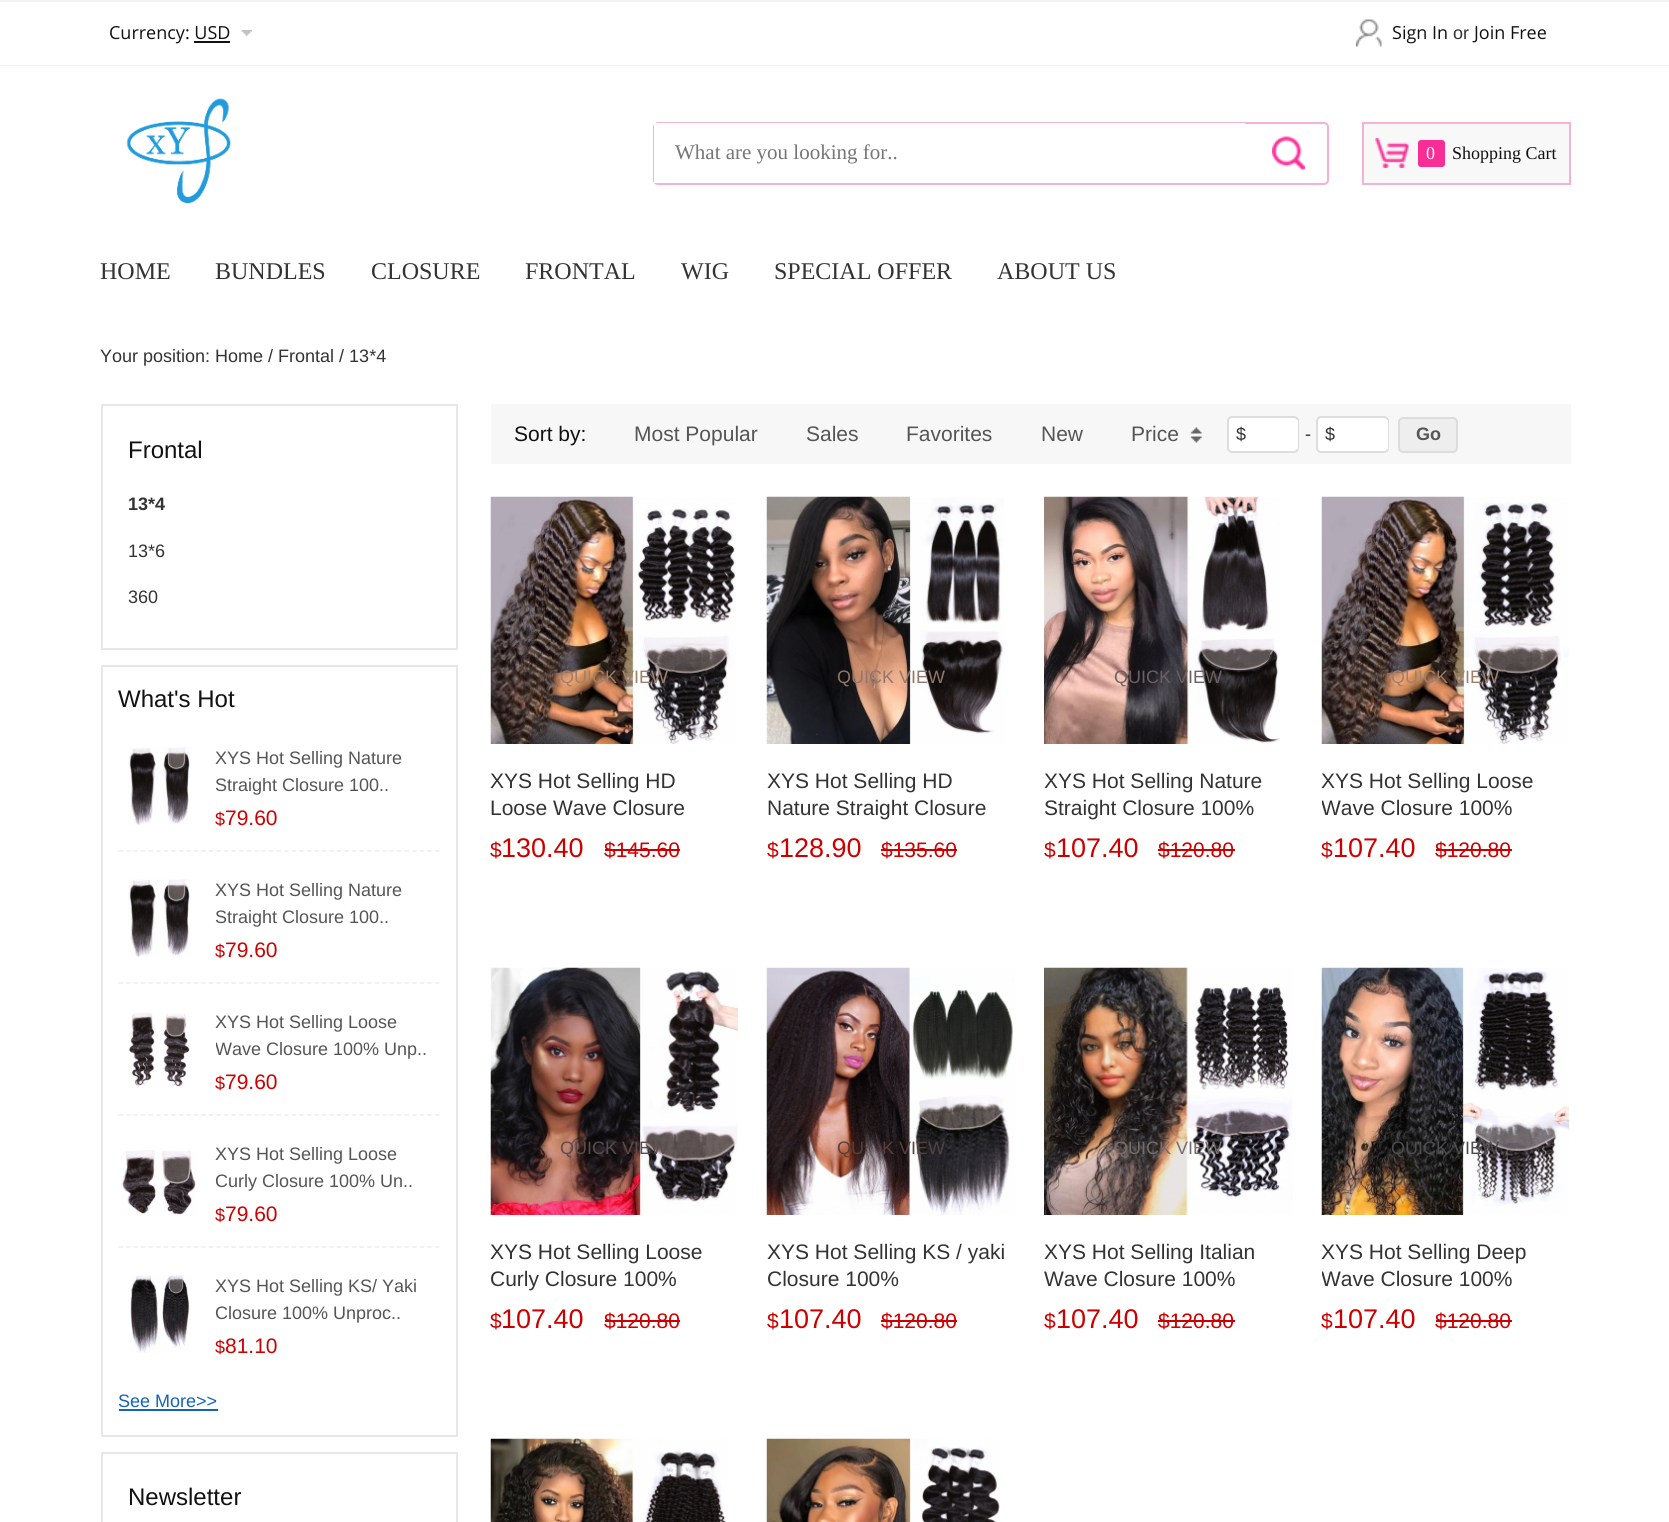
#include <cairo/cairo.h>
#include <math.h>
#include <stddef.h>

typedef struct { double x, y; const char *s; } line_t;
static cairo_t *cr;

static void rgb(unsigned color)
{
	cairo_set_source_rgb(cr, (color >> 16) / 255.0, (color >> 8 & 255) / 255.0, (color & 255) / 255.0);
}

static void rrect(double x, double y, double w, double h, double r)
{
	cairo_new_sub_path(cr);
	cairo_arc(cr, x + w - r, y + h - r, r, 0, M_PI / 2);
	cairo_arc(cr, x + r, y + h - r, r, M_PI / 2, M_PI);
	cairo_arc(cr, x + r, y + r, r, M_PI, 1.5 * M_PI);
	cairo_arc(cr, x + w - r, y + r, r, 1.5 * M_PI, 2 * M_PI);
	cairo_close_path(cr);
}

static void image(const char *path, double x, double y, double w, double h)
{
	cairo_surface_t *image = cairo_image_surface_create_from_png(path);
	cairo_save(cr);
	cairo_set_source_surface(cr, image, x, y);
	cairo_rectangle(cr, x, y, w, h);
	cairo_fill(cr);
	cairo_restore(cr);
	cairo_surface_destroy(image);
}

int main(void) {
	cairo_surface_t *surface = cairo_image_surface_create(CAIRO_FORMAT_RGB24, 1669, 1522);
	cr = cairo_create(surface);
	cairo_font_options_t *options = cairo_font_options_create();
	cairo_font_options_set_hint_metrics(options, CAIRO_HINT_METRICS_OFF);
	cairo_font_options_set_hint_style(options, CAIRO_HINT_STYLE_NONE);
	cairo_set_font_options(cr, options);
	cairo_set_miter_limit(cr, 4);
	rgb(0xffffff);
	cairo_paint(cr);
	rgb(0xf2f2f2);
	cairo_rectangle(cr, 0, 0, 1669, 2);
	cairo_fill(cr);
	cairo_rectangle(cr, 0, 65, 1669, 1);
	cairo_fill(cr);
	image("img/1.png", 241, 30, 11, 6);
	rgb(0x111111);
	cairo_rectangle(cr, 194, 41, 36, 2);
	cairo_fill(cr);
	image("img/2.png", 1356, 19, 26, 28);
	image("img/3.png", 126, 98, 105, 106);
	rrect(654, 123, 674, 61, 4);
	rgb(0xf6b1d3);
	cairo_stroke(cr);
	rgb(0xffffff);
	cairo_rectangle(cr, 654, 123, 591, 60);
	cairo_fill(cr);
	image("img/4.png", 1272, 136, 33, 34);
	rgb(0xf8f8f8);
	cairo_rectangle(cr, 1363, 123, 207, 61);
	cairo_fill_preserve(cr);
	rgb(0xf6b1d3);
	cairo_stroke(cr);
	image("img/5.png", 1375, 138, 34, 30);
	rgb(0xf92d96);
	rrect(1418, 140, 27, 27, 3);
	cairo_fill(cr);
	cairo_rectangle(cr, 102, 405, 355, 244);
	rgb(0xe7e7e7);
	cairo_stroke(cr);
	cairo_rectangle(cr, 102, 666, 355, 770);
	cairo_stroke(cr);
	image("img/6.png", 128, 747, 62, 78);
	cairo_new_path(cr);
	cairo_move_to(cr, 118.5, 851);
	cairo_line_to(cr, 439.5, 851);
	rgb(0xeeeeee);
	cairo_set_line_width(cr, 1.5);
	cairo_set_dash(cr, (double[]){4.5, 3.03}, 2, 0);
	cairo_stroke(cr);
	image("img/6.png", 128, 879, 62, 78);
	cairo_new_path(cr);
	cairo_move_to(cr, 118.5, 983);
	cairo_line_to(cr, 439.5, 983);
	cairo_stroke(cr);
	image("img/7.png", 128, 1012, 62, 75);
	cairo_new_path(cr);
	cairo_move_to(cr, 118.5, 1115);
	cairo_line_to(cr, 439.5, 1115);
	cairo_stroke(cr);
	image("img/8.png", 121, 1150, 75, 65);
	cairo_new_path(cr);
	cairo_move_to(cr, 118.5, 1247);
	cairo_line_to(cr, 439.5, 1247);
	cairo_stroke(cr);
	image("img/9.png", 130, 1275, 60, 78);
	rgb(0x1363bc);
	cairo_rectangle(cr, 119, 1409, 99, 2);
	cairo_fill(cr);
	cairo_rectangle(cr, 102, 1453, 355, 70);
	rgb(0xe7e7e7);
	cairo_set_line_width(cr, 2);
	cairo_set_dash(cr, NULL, 0, 0);
	cairo_stroke(cr);
	rgb(0xf7f7f7);
	cairo_rectangle(cr, 491, 404, 1080, 60);
	cairo_fill(cr);
	image("img/10.png", 1190, 427, 12, 16);
	rgb(0xffffff);
	rrect(1228, 417, 70, 35, 4);
	cairo_fill_preserve(cr);
	rgb(0xdddddd);
	cairo_stroke(cr);
	rgb(0xffffff);
	cairo_rectangle(cr, 1296, 420, 2, 29);
	cairo_fill(cr);
	rrect(1317, 417, 71, 35, 4);
	cairo_fill_preserve(cr);
	rgb(0xdddddd);
	cairo_stroke(cr);
	rgb(0xffffff);
	cairo_rectangle(cr, 1386, 420, 2, 29);
	cairo_fill(cr);
	rgb(0xeeeeee);
	rrect(1399, 418, 58, 34, 4);
	cairo_fill_preserve(cr);
	rgb(0xdddddd);
	cairo_stroke(cr);
	image("img/11.png", 490, 496, 246, 248);
	rgb(0xcc0000);
	cairo_rectangle(cr, 605, 849, 75, 2);
	cairo_fill(cr);
	image("img/12.png", 766, 496, 238, 248);
	cairo_rectangle(cr, 881, 849, 76, 2);
	cairo_fill(cr);
	image("img/13.png", 1044, 496, 236, 248);
	cairo_rectangle(cr, 1158, 849, 77, 2);
	cairo_fill(cr);
	image("img/14.png", 1321, 496, 248, 248);
	cairo_rectangle(cr, 1436, 849, 76, 2);
	cairo_fill(cr);
	image("img/15.png", 490, 967, 248, 248);
	cairo_rectangle(cr, 605, 1320, 75, 2);
	cairo_fill(cr);
	image("img/16.png", 766, 967, 249, 248);
	cairo_rectangle(cr, 881, 1320, 76, 2);
	cairo_fill(cr);
	image("img/17.png", 1044, 967, 249, 248);
	cairo_rectangle(cr, 1158, 1320, 77, 2);
	cairo_fill(cr);
	image("img/18.png", 1321, 967, 248, 248);
	cairo_rectangle(cr, 1436, 1320, 76, 2);
	cairo_fill(cr);
	image("img/19.png", 490, 1438, 237, 84);
	image("img/20.png", 766, 1438, 234, 84);
	cairo_select_font_face(cr, "Open Sans", CAIRO_FONT_SLANT_NORMAL, CAIRO_FONT_WEIGHT_NORMAL);
	cairo_set_font_size(cr, 18);
	rgb(0x111111);
	cairo_move_to(cr, 109, 39);
	cairo_show_text(cr, "Currency: USD");
	cairo_move_to(cr, 1392, 39);
	cairo_show_text(cr, "Sign In");
	cairo_select_font_face(cr, "Liberation Sans", CAIRO_FONT_SLANT_NORMAL, CAIRO_FONT_WEIGHT_NORMAL);
	rgb(0x333333);
	cairo_move_to(cr, 1453, 39);
	cairo_show_text(cr, "or");
	cairo_select_font_face(cr, "Open Sans", CAIRO_FONT_SLANT_NORMAL, CAIRO_FONT_WEIGHT_NORMAL);
	rgb(0x111111);
	cairo_move_to(cr, 1474, 39);
	cairo_show_text(cr, "Join Free");
	cairo_select_font_face(cr, "Liberation Serif", CAIRO_FONT_SLANT_NORMAL, CAIRO_FONT_WEIGHT_NORMAL);
	cairo_set_font_size(cr, 21);
	rgb(0x757575);
	cairo_move_to(cr, 675, 159);
	cairo_show_text(cr, "What are you looking for..");
	cairo_set_font_size(cr, 18);
	rgb(0xffffff);
	cairo_move_to(cr, 1426, 159);
	cairo_show_text(cr, "0");
	rgb(0x111111);
	cairo_move_to(cr, 1452, 159);
	cairo_show_text(cr, "Shopping Cart");
	cairo_set_font_size(cr, 24);
	rgb(0x333333);
	{
		static const line_t items[] = {
			{100, 279, "HOME"},
			{215, 279, "BUNDLES"},
			{371, 279, "CLOSURE"},
			{525, 279, "FRONTAL"},
			{681, 279, "WIG"},
			{774, 279, "SPECIAL OFFER"},
			{997, 279, "ABOUT US"},
		};
		for (size_t i = 0; i < sizeof items / sizeof *items; i++) {
			cairo_move_to(cr, items[i].x, items[i].y);
			cairo_show_text(cr, items[i].s);
		}
	}
	cairo_select_font_face(cr, "Liberation Sans", CAIRO_FONT_SLANT_NORMAL, CAIRO_FONT_WEIGHT_NORMAL);
	cairo_set_font_size(cr, 18);
	cairo_move_to(cr, 100, 362);
	cairo_show_text(cr, "Your position: Home / Frontal / 13*4");
	cairo_set_font_size(cr, 24);
	rgb(0x111111);
	cairo_move_to(cr, 128, 458);
	cairo_show_text(cr, "Frontal");
	cairo_select_font_face(cr, "Liberation Sans", CAIRO_FONT_SLANT_NORMAL, CAIRO_FONT_WEIGHT_BOLD);
	cairo_set_font_size(cr, 18);
	rgb(0x333333);
	cairo_move_to(cr, 128, 510);
	cairo_show_text(cr, "13*4");
	cairo_select_font_face(cr, "Liberation Sans", CAIRO_FONT_SLANT_NORMAL, CAIRO_FONT_WEIGHT_NORMAL);
	cairo_move_to(cr, 128, 557);
	cairo_show_text(cr, "13*6");
	cairo_move_to(cr, 128, 603);
	cairo_show_text(cr, "360");
	cairo_set_font_size(cr, 24);
	rgb(0x111111);
	cairo_move_to(cr, 118, 707);
	cairo_show_text(cr, "What's Hot");
	cairo_set_font_size(cr, 18);
	rgb(0x555555);
	cairo_move_to(cr, 215, 764);
	cairo_show_text(cr, "XYS Hot Selling Nature");
	cairo_move_to(cr, 215, 791);
	cairo_show_text(cr, "Straight Closure 100..");
	rgb(0xcc0000);
	cairo_move_to(cr, 215, 825);
	cairo_show_text(cr, "$");
	cairo_set_font_size(cr, 21);
	cairo_move_to(cr, 225, 825);
	cairo_show_text(cr, "79.60");
	cairo_set_font_size(cr, 18);
	rgb(0x555555);
	cairo_move_to(cr, 215, 896);
	cairo_show_text(cr, "XYS Hot Selling Nature");
	cairo_move_to(cr, 215, 923);
	cairo_show_text(cr, "Straight Closure 100..");
	rgb(0xcc0000);
	cairo_move_to(cr, 215, 957);
	cairo_show_text(cr, "$");
	cairo_set_font_size(cr, 21);
	cairo_move_to(cr, 225, 957);
	cairo_show_text(cr, "79.60");
	cairo_set_font_size(cr, 18);
	rgb(0x555555);
	cairo_move_to(cr, 215, 1028);
	cairo_show_text(cr, "XYS Hot Selling Loose");
	cairo_save(cr);
	cairo_rectangle(cr, 216, 1008, 224, 54);
	cairo_clip(cr);
	cairo_move_to(cr, 215, 1055);
	cairo_show_text(cr, "Wave");
	cairo_restore(cr);
	cairo_move_to(cr, 266, 1055);
	cairo_show_text(cr, "Closure 100% Unp..");
	rgb(0xcc0000);
	cairo_move_to(cr, 215, 1089);
	cairo_show_text(cr, "$");
	cairo_set_font_size(cr, 21);
	cairo_move_to(cr, 225, 1089);
	cairo_show_text(cr, "79.60");
	cairo_set_font_size(cr, 18);
	rgb(0x555555);
	cairo_move_to(cr, 215, 1160);
	cairo_show_text(cr, "XYS Hot Selling Loose");
	cairo_move_to(cr, 215, 1187);
	cairo_show_text(cr, "Curly Closure 100% Un..");
	rgb(0xcc0000);
	cairo_move_to(cr, 215, 1221);
	cairo_show_text(cr, "$");
	cairo_set_font_size(cr, 21);
	cairo_move_to(cr, 225, 1221);
	cairo_show_text(cr, "79.60");
	cairo_set_font_size(cr, 18);
	rgb(0x555555);
	cairo_move_to(cr, 215, 1292);
	cairo_show_text(cr, "XYS Hot Selling KS/ Yaki");
	cairo_move_to(cr, 215, 1319);
	cairo_show_text(cr, "Closure 100% Unproc..");
	rgb(0xcc0000);
	cairo_move_to(cr, 215, 1353);
	cairo_show_text(cr, "$");
	cairo_set_font_size(cr, 21);
	cairo_move_to(cr, 225, 1353);
	cairo_show_text(cr, "81.10");
	cairo_set_font_size(cr, 18);
	rgb(0x1363bc);
	cairo_move_to(cr, 118, 1407);
	cairo_show_text(cr, "See More>>");
	cairo_set_font_size(cr, 24);
	rgb(0x111111);
	cairo_move_to(cr, 128, 1505);
	cairo_show_text(cr, "Newsletter");
	cairo_set_font_size(cr, 21);
	cairo_move_to(cr, 514, 441);
	cairo_show_text(cr, "Sort by:");
	rgb(0x555555);
	{
		static const line_t items[] = {
			{634, 441, "Most Popular"},
			{806, 441, "Sales"},
			{906, 441, "Favorites"},
			{1041, 441, "New"},
			{1131, 441, "Price"},
		};
		for (size_t i = 0; i < sizeof items / sizeof *items; i++) {
			cairo_move_to(cr, items[i].x, items[i].y);
			cairo_show_text(cr, items[i].s);
		}
	}
	cairo_set_font_size(cr, 18);
	rgb(0x333333);
	{
		static const line_t items[] = {
			{1236, 440, "$"},
			{1305, 440, "-"},
			{1325, 440, "$"},
		};
		for (size_t i = 0; i < sizeof items / sizeof *items; i++) {
			cairo_move_to(cr, items[i].x, items[i].y);
			cairo_show_text(cr, items[i].s);
		}
	}
	cairo_select_font_face(cr, "Liberation Sans", CAIRO_FONT_SLANT_NORMAL, CAIRO_FONT_WEIGHT_BOLD);
	rgb(0x555555);
	cairo_move_to(cr, 1416, 440);
	cairo_show_text(cr, "Go");
	cairo_select_font_face(cr, "Liberation Sans", CAIRO_FONT_SLANT_NORMAL, CAIRO_FONT_WEIGHT_NORMAL);
	rgb(0x9f806c);
	cairo_move_to(cr, 560, 683);
	cairo_show_text(cr, "QUICK VIEW");
	cairo_set_font_size(cr, 21);
	rgb(0x333333);
	cairo_move_to(cr, 490, 788);
	cairo_show_text(cr, "XYS Hot Selling HD");
	cairo_move_to(cr, 490, 815);
	cairo_show_text(cr, "Loose Wave Closure");
	rgb(0xcc0000);
	cairo_move_to(cr, 490, 857);
	cairo_show_text(cr, "$");
	cairo_set_font_size(cr, 27);
	cairo_move_to(cr, 501, 857);
	cairo_show_text(cr, "130.40");
	cairo_set_font_size(cr, 21);
	cairo_move_to(cr, 604, 857);
	cairo_show_text(cr, "$145.60");
	cairo_set_font_size(cr, 18);
	rgb(0x917769);
	cairo_move_to(cr, 837, 683);
	cairo_show_text(cr, "QUICK VIEW");
	cairo_set_font_size(cr, 21);
	rgb(0x333333);
	cairo_move_to(cr, 767, 788);
	cairo_show_text(cr, "XYS Hot Selling HD");
	cairo_move_to(cr, 767, 815);
	cairo_show_text(cr, "Nature Straight Closure");
	rgb(0xcc0000);
	cairo_move_to(cr, 767, 857);
	cairo_show_text(cr, "$");
	cairo_set_font_size(cr, 27);
	cairo_move_to(cr, 779, 857);
	cairo_show_text(cr, "128.90");
	cairo_set_font_size(cr, 21);
	cairo_move_to(cr, 881, 857);
	cairo_show_text(cr, "$135.60");
	cairo_set_font_size(cr, 18);
	rgb(0x6a6162);
	cairo_move_to(cr, 1114, 683);
	cairo_show_text(cr, "QUICK VIEW");
	cairo_set_font_size(cr, 21);
	rgb(0x333333);
	cairo_move_to(cr, 1044, 788);
	cairo_show_text(cr, "XYS Hot Selling Nature");
	cairo_move_to(cr, 1044, 815);
	cairo_show_text(cr, "Straight Closure 100%");
	rgb(0xcc0000);
	cairo_move_to(cr, 1044, 857);
	cairo_show_text(cr, "$");
	cairo_set_font_size(cr, 27);
	cairo_move_to(cr, 1056, 857);
	cairo_show_text(cr, "107.40");
	cairo_set_font_size(cr, 21);
	cairo_move_to(cr, 1158, 857);
	cairo_show_text(cr, "$120.80");
	cairo_set_font_size(cr, 18);
	rgb(0x9f806c);
	cairo_move_to(cr, 1391, 683);
	cairo_show_text(cr, "QUICK VIEW");
	cairo_set_font_size(cr, 21);
	rgb(0x333333);
	cairo_move_to(cr, 1321, 788);
	cairo_show_text(cr, "XYS Hot Selling Loose");
	cairo_save(cr);
	cairo_rectangle(cr, 1322, 767, 247, 54);
	cairo_clip(cr);
	cairo_move_to(cr, 1321, 815);
	cairo_show_text(cr, "Wave Closure 100%");
	cairo_restore(cr);
	rgb(0xcc0000);
	cairo_move_to(cr, 1321, 857);
	cairo_show_text(cr, "$");
	cairo_set_font_size(cr, 27);
	cairo_move_to(cr, 1333, 857);
	cairo_show_text(cr, "107.40");
	cairo_set_font_size(cr, 21);
	cairo_move_to(cr, 1435, 857);
	cairo_show_text(cr, "$120.80");
	cairo_set_font_size(cr, 18);
	rgb(0x5d4b4a);
	cairo_move_to(cr, 560, 1154);
	cairo_show_text(cr, "QUICK VIEW");
	cairo_set_font_size(cr, 21);
	rgb(0x333333);
	cairo_move_to(cr, 490, 1259);
	cairo_show_text(cr, "XYS Hot Selling Loose");
	cairo_save(cr);
	cairo_rectangle(cr, 491, 1238, 247, 54);
	cairo_clip(cr);
	cairo_move_to(cr, 490, 1286);
	cairo_show_text(cr, "Curly Closure 100%");
	cairo_restore(cr);
	rgb(0xcc0000);
	cairo_move_to(cr, 490, 1328);
	cairo_show_text(cr, "$");
	cairo_set_font_size(cr, 27);
	cairo_move_to(cr, 501, 1328);
	cairo_show_text(cr, "107.40");
	cairo_set_font_size(cr, 21);
	cairo_move_to(cr, 604, 1328);
	cairo_show_text(cr, "$120.80");
	cairo_set_font_size(cr, 18);
	rgb(0x54413e);
	cairo_move_to(cr, 837, 1154);
	cairo_show_text(cr, "QU");
	cairo_move_to(cr, 882, 1154);
	cairo_show_text(cr, "K VIEW");
	cairo_set_font_size(cr, 21);
	rgb(0x333333);
	cairo_move_to(cr, 767, 1259);
	cairo_show_text(cr, "XYS Hot Selling KS / yaki");
	cairo_move_to(cr, 767, 1286);
	cairo_show_text(cr, "Closure 100%");
	rgb(0xcc0000);
	cairo_move_to(cr, 767, 1328);
	cairo_show_text(cr, "$");
	cairo_set_font_size(cr, 27);
	cairo_move_to(cr, 779, 1328);
	cairo_show_text(cr, "107.40");
	cairo_set_font_size(cr, 21);
	cairo_move_to(cr, 881, 1328);
	cairo_show_text(cr, "$120.80");
	cairo_set_font_size(cr, 18);
	rgb(0x776d6b);
	cairo_move_to(cr, 1114, 1154);
	cairo_show_text(cr, "QUICK VIEW");
	cairo_set_font_size(cr, 21);
	rgb(0x333333);
	cairo_move_to(cr, 1044, 1259);
	cairo_show_text(cr, "XYS Hot Selling Italian");
	cairo_move_to(cr, 1044, 1286);
	cairo_show_text(cr, "Wave Closure 100%");
	rgb(0xcc0000);
	cairo_move_to(cr, 1044, 1328);
	cairo_show_text(cr, "$");
	cairo_set_font_size(cr, 27);
	cairo_move_to(cr, 1056, 1328);
	cairo_show_text(cr, "107.40");
	cairo_set_font_size(cr, 21);
	cairo_move_to(cr, 1158, 1328);
	cairo_show_text(cr, "$120.80");
	cairo_set_font_size(cr, 18);
	rgb(0x4e4d4e);
	cairo_move_to(cr, 1391, 1154);
	cairo_show_text(cr, "QUICK VIEW");
	cairo_set_font_size(cr, 21);
	rgb(0x333333);
	cairo_move_to(cr, 1321, 1259);
	cairo_show_text(cr, "XYS Hot Selling Deep");
	cairo_save(cr);
	cairo_rectangle(cr, 1322, 1238, 247, 54);
	cairo_clip(cr);
	cairo_move_to(cr, 1321, 1286);
	cairo_show_text(cr, "Wave Closure 100%");
	cairo_restore(cr);
	rgb(0xcc0000);
	cairo_move_to(cr, 1321, 1328);
	cairo_show_text(cr, "$");
	cairo_set_font_size(cr, 27);
	cairo_move_to(cr, 1333, 1328);
	cairo_show_text(cr, "107.40");
	cairo_set_font_size(cr, 21);
	cairo_move_to(cr, 1435, 1328);
	cairo_show_text(cr, "$120.80");
	cairo_surface_write_to_png(surface, "page.png");
	cairo_font_options_destroy(options);
	cairo_destroy(cr);
	cairo_surface_destroy(surface);
	return 0;
}
